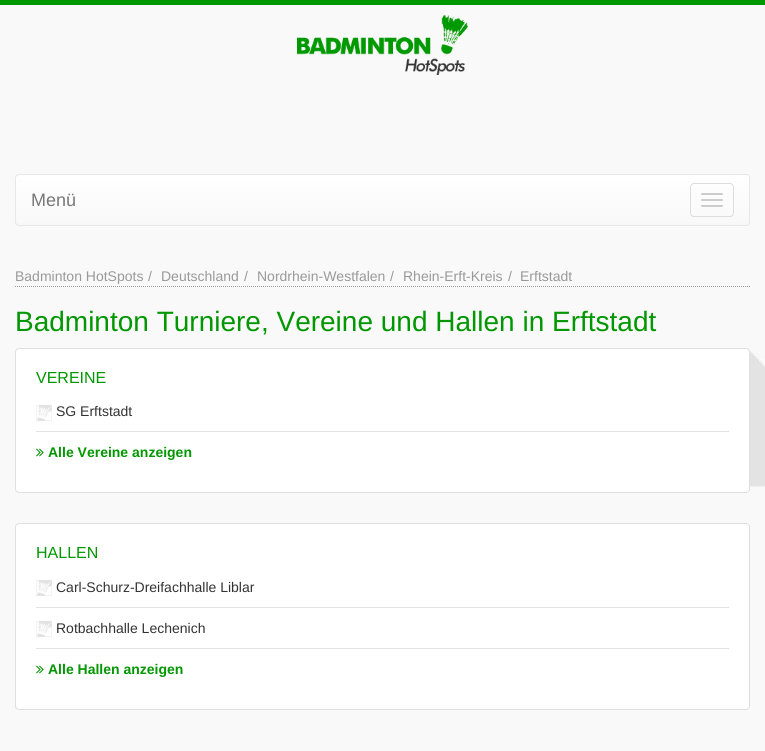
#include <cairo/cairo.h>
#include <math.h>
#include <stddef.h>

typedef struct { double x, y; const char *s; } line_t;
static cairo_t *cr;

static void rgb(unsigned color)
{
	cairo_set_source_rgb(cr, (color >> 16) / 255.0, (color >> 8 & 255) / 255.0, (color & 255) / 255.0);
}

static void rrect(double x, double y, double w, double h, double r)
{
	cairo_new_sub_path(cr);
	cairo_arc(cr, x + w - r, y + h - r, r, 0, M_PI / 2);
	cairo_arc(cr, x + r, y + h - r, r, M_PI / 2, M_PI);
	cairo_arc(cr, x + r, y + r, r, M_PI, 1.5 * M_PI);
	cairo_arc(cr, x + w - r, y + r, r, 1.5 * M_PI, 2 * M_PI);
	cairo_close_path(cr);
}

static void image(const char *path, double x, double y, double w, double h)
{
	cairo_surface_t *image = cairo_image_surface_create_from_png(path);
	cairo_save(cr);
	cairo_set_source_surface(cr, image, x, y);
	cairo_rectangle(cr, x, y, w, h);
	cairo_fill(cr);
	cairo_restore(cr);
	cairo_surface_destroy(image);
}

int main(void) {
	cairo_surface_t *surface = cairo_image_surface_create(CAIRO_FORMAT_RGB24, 765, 751);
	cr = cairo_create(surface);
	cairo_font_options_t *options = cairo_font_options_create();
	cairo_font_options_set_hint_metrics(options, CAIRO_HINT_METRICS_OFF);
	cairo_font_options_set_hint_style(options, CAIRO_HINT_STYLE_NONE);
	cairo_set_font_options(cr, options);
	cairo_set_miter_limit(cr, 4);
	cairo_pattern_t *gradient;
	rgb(0xf9f9f9);
	cairo_paint(cr);
	image("img/1.png", 749, 351, 16, 136);
	rgb(0x009700);
	cairo_rectangle(cr, 0, 0, 765, 5);
	cairo_fill(cr);
	image("img/2.png", 297, 15, 171, 60);
	cairo_save(cr);
	rrect(15, 174, 735, 52, 4);
	cairo_clip(cr);
	gradient = cairo_pattern_create_linear(383, 175, 383, 225);
	cairo_pattern_add_color_stop_rgba(gradient, 0, 1, 1, 1, 1);
	cairo_pattern_add_color_stop_rgba(gradient, 1, 0.973, 0.973, 0.973, 1);
	cairo_set_source(cr, gradient);
	cairo_pattern_destroy(gradient);
	cairo_rectangle(cr, 15, 175, 735, 50);
	cairo_fill(cr);
	cairo_restore(cr);
	rrect(15.5, 174.5, 734, 51, 3.5);
	rgb(0xe7e7e7);
	cairo_set_line_width(cr, 1);
	cairo_stroke(cr);
	rrect(690.5, 183.5, 43, 33, 3.5);
	rgb(0xdddddd);
	cairo_stroke(cr);
	rgb(0xcccccc);
	rrect(701, 193, 22, 2, 1);
	cairo_fill(cr);
	rrect(701, 199, 22, 2, 1);
	cairo_fill(cr);
	rrect(701, 205, 22, 2, 1);
	cairo_fill(cr);
	cairo_new_path(cr);
	cairo_move_to(cr, 15, 286.5);
	cairo_line_to(cr, 750, 286.5);
	rgb(0x999999);
	cairo_set_dash(cr, (double[]){1, 1}, 2, 0);
	cairo_stroke(cr);
	rgb(0xffffff);
	rrect(15.5, 348.5, 734, 144, 3.5);
	cairo_fill_preserve(cr);
	rgb(0xdfdfdf);
	cairo_set_dash(cr, NULL, 0, 0);
	cairo_stroke(cr);
	image("img/3.png", 36, 405, 16, 16);
	rgb(0xe3e3e3);
	cairo_rectangle(cr, 36, 431, 693, 1);
	cairo_fill(cr);
	image("img/4.png", 36, 448, 8, 9);
	rgb(0xffffff);
	rrect(15.5, 523.5, 734, 186, 3.5);
	cairo_fill_preserve(cr);
	rgb(0xdfdfdf);
	cairo_stroke(cr);
	image("img/3.png", 36, 580, 16, 16);
	rgb(0xe3e3e3);
	cairo_rectangle(cr, 36, 607, 693, 1);
	cairo_fill(cr);
	image("img/3.png", 36, 621, 16, 16);
	cairo_rectangle(cr, 36, 648, 693, 1);
	cairo_fill(cr);
	image("img/4.png", 36, 665, 8, 9);
	cairo_select_font_face(cr, "Liberation Sans", CAIRO_FONT_SLANT_NORMAL, CAIRO_FONT_WEIGHT_NORMAL);
	cairo_set_font_size(cr, 18);
	rgb(0x777777);
	cairo_move_to(cr, 31, 206);
	cairo_show_text(cr, "Menü");
	cairo_set_font_size(cr, 14);
	rgb(0x999999);
	{
		static const line_t items[] = {
			{15, 281, "Badminton HotSpots"},
			{148, 281, "/"},
			{161, 281, "Deutschland"},
			{244, 281, "/"},
			{257, 281, "Nordrhein-Westfalen"},
			{390, 281, "/"},
			{403, 281, "Rhein-Erft-Kreis"},
			{508, 281, "/"},
			{520, 281, "Erftstadt"},
		};
		for (size_t i = 0; i < sizeof items / sizeof *items; i++) {
			cairo_move_to(cr, items[i].x, items[i].y);
			cairo_show_text(cr, items[i].s);
		}
	}
	cairo_set_font_size(cr, 28);
	rgb(0x009700);
	cairo_move_to(cr, 15, 331);
	cairo_show_text(cr, "Badminton Turniere, Vereine und Hallen in Erftstadt");
	cairo_set_font_size(cr, 16);
	cairo_move_to(cr, 36, 383);
	cairo_show_text(cr, "VEREINE");
	cairo_set_font_size(cr, 14);
	rgb(0x333333);
	cairo_move_to(cr, 56, 416);
	cairo_show_text(cr, "SG Erftstadt");
	cairo_select_font_face(cr, "Liberation Sans", CAIRO_FONT_SLANT_NORMAL, CAIRO_FONT_WEIGHT_BOLD);
	rgb(0x009700);
	cairo_move_to(cr, 48, 457);
	cairo_show_text(cr, "Alle Vereine anzeigen");
	cairo_select_font_face(cr, "Liberation Sans", CAIRO_FONT_SLANT_NORMAL, CAIRO_FONT_WEIGHT_NORMAL);
	cairo_set_font_size(cr, 16);
	cairo_move_to(cr, 36, 558);
	cairo_show_text(cr, "HALLEN");
	cairo_set_font_size(cr, 14);
	rgb(0x333333);
	cairo_move_to(cr, 56, 592);
	cairo_show_text(cr, "Carl-Schurz-Dreifachhalle Liblar");
	cairo_move_to(cr, 56, 633);
	cairo_show_text(cr, "Rotbachhalle Lechenich");
	cairo_select_font_face(cr, "Liberation Sans", CAIRO_FONT_SLANT_NORMAL, CAIRO_FONT_WEIGHT_BOLD);
	rgb(0x009700);
	cairo_move_to(cr, 48, 674);
	cairo_show_text(cr, "Alle Hallen anzeigen");
	cairo_surface_write_to_png(surface, "page.png");
	cairo_font_options_destroy(options);
	cairo_destroy(cr);
	cairo_surface_destroy(surface);
	return 0;
}
